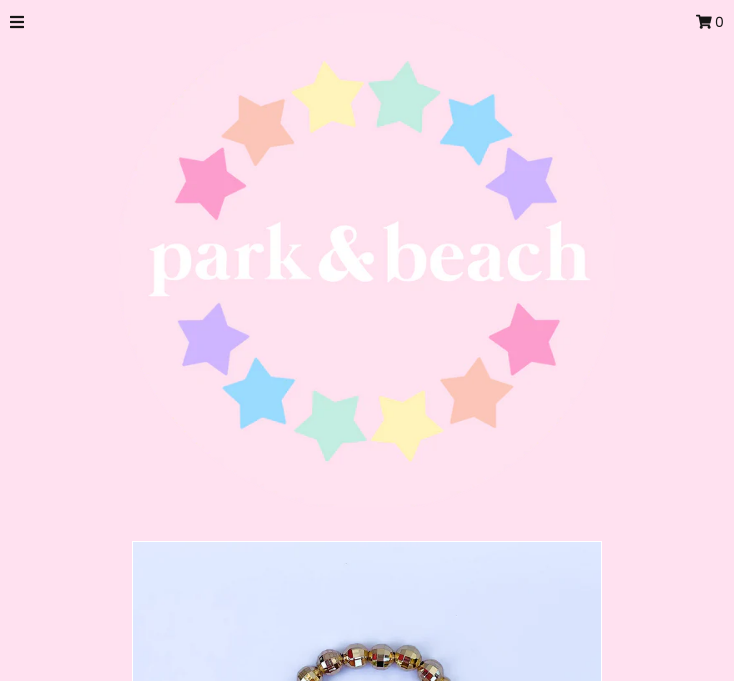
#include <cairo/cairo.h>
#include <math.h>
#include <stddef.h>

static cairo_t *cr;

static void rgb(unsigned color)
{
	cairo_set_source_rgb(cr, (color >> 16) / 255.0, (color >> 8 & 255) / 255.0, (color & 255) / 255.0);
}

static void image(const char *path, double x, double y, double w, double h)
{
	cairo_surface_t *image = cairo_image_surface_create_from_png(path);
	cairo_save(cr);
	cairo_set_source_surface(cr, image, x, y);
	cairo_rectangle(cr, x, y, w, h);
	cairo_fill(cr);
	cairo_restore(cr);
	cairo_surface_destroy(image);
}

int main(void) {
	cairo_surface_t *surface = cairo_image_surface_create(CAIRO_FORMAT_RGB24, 734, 681);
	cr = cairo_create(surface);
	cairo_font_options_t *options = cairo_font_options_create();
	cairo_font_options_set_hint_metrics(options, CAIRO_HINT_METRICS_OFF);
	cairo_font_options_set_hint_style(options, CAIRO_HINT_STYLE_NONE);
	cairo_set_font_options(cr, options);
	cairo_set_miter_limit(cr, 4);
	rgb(0xffe1f0);
	cairo_paint(cr);
	image("img/1.png", 10, 15, 14, 14);
	image("img/2.png", 119, 13, 496, 494);
	image("img/3.png", 696, 14, 16, 15);
	cairo_rectangle(cr, 132.5, 541.5, 469, 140);
	rgb(0xffffff);
	cairo_set_line_width(cr, 1);
	cairo_stroke(cr);
	image("img/4.png", 133, 542, 468, 139);
	cairo_select_font_face(cr, "Poppins", CAIRO_FONT_SLANT_NORMAL, CAIRO_FONT_WEIGHT_NORMAL);
	cairo_set_font_size(cr, 14);
	rgb(0x161616);
	cairo_move_to(cr, 715, 27);
	cairo_show_text(cr, "0");
	cairo_surface_write_to_png(surface, "page.png");
	cairo_font_options_destroy(options);
	cairo_destroy(cr);
	cairo_surface_destroy(surface);
	return 0;
}
